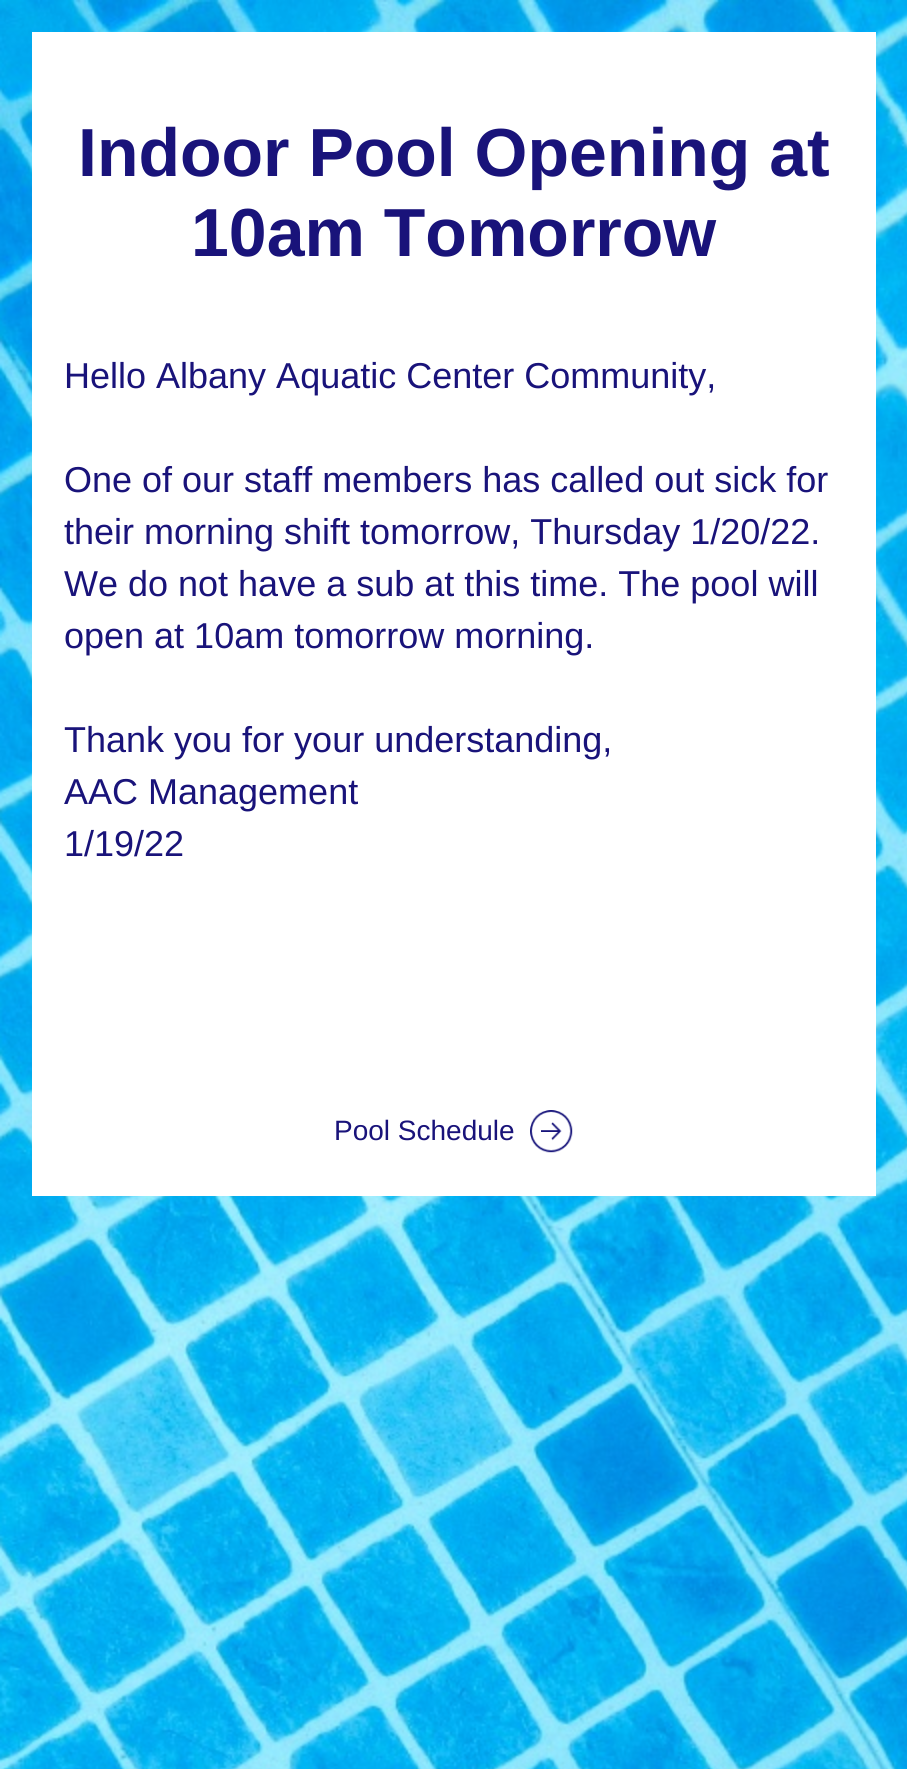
#include <cairo/cairo.h>
#include <math.h>
#include <stddef.h>

typedef struct { double x, y; const char *s; } line_t;
static cairo_t *cr;

static void rgb(unsigned color)
{
	cairo_set_source_rgb(cr, (color >> 16) / 255.0, (color >> 8 & 255) / 255.0, (color & 255) / 255.0);
}

static void image(const char *path, double x, double y, double w, double h)
{
	cairo_surface_t *image = cairo_image_surface_create_from_png(path);
	cairo_save(cr);
	cairo_set_source_surface(cr, image, x, y);
	cairo_rectangle(cr, x, y, w, h);
	cairo_fill(cr);
	cairo_restore(cr);
	cairo_surface_destroy(image);
}

int main(void) {
	cairo_surface_t *surface = cairo_image_surface_create(CAIRO_FORMAT_RGB24, 907, 1769);
	cr = cairo_create(surface);
	cairo_font_options_t *options = cairo_font_options_create();
	cairo_font_options_set_hint_metrics(options, CAIRO_HINT_METRICS_OFF);
	cairo_font_options_set_hint_style(options, CAIRO_HINT_STYLE_NONE);
	cairo_set_font_options(cr, options);
	cairo_set_miter_limit(cr, 4);
	rgb(0xffffff);
	cairo_paint(cr);
	image("img/1.png", 0, 0, 907, 1769);
	rgb(0xffffff);
	cairo_rectangle(cr, 32, 32, 844, 1164);
	cairo_fill(cr);
	image("img/2.png", 530, 1110, 43, 43);
	cairo_select_font_face(cr, "Liberation Sans", CAIRO_FONT_SLANT_NORMAL, CAIRO_FONT_WEIGHT_BOLD);
	cairo_set_font_size(cr, 68);
	rgb(0x19137a);
	cairo_move_to(cr, 78, 176);
	cairo_show_text(cr, "Indoor Pool Opening at");
	cairo_move_to(cr, 191, 256);
	cairo_show_text(cr, "10am Tomorrow");
	cairo_select_font_face(cr, "Liberation Sans", CAIRO_FONT_SLANT_NORMAL, CAIRO_FONT_WEIGHT_NORMAL);
	cairo_set_font_size(cr, 36);
	{
		static const line_t items[] = {
			{64, 388, "Hello Albany Aquatic Center Community,"},
			{64, 492, "One of our staff members has called out sick for"},
			{64, 544, "their morning shift tomorrow, Thursday 1/20/22."},
			{64, 596, "We do not have a sub at this time. The pool will"},
			{64, 648, "open at 10am tomorrow morning."},
			{64, 752, "Thank you for your understanding,"},
			{64, 804, "AAC Management"},
			{64, 856, "1/19/22"},
		};
		for (size_t i = 0; i < sizeof items / sizeof *items; i++) {
			cairo_move_to(cr, items[i].x, items[i].y);
			cairo_show_text(cr, items[i].s);
		}
	}
	cairo_set_font_size(cr, 28);
	cairo_move_to(cr, 334, 1140);
	cairo_show_text(cr, "Pool Schedule");
	cairo_surface_write_to_png(surface, "page.png");
	cairo_font_options_destroy(options);
	cairo_destroy(cr);
	cairo_surface_destroy(surface);
	return 0;
}
